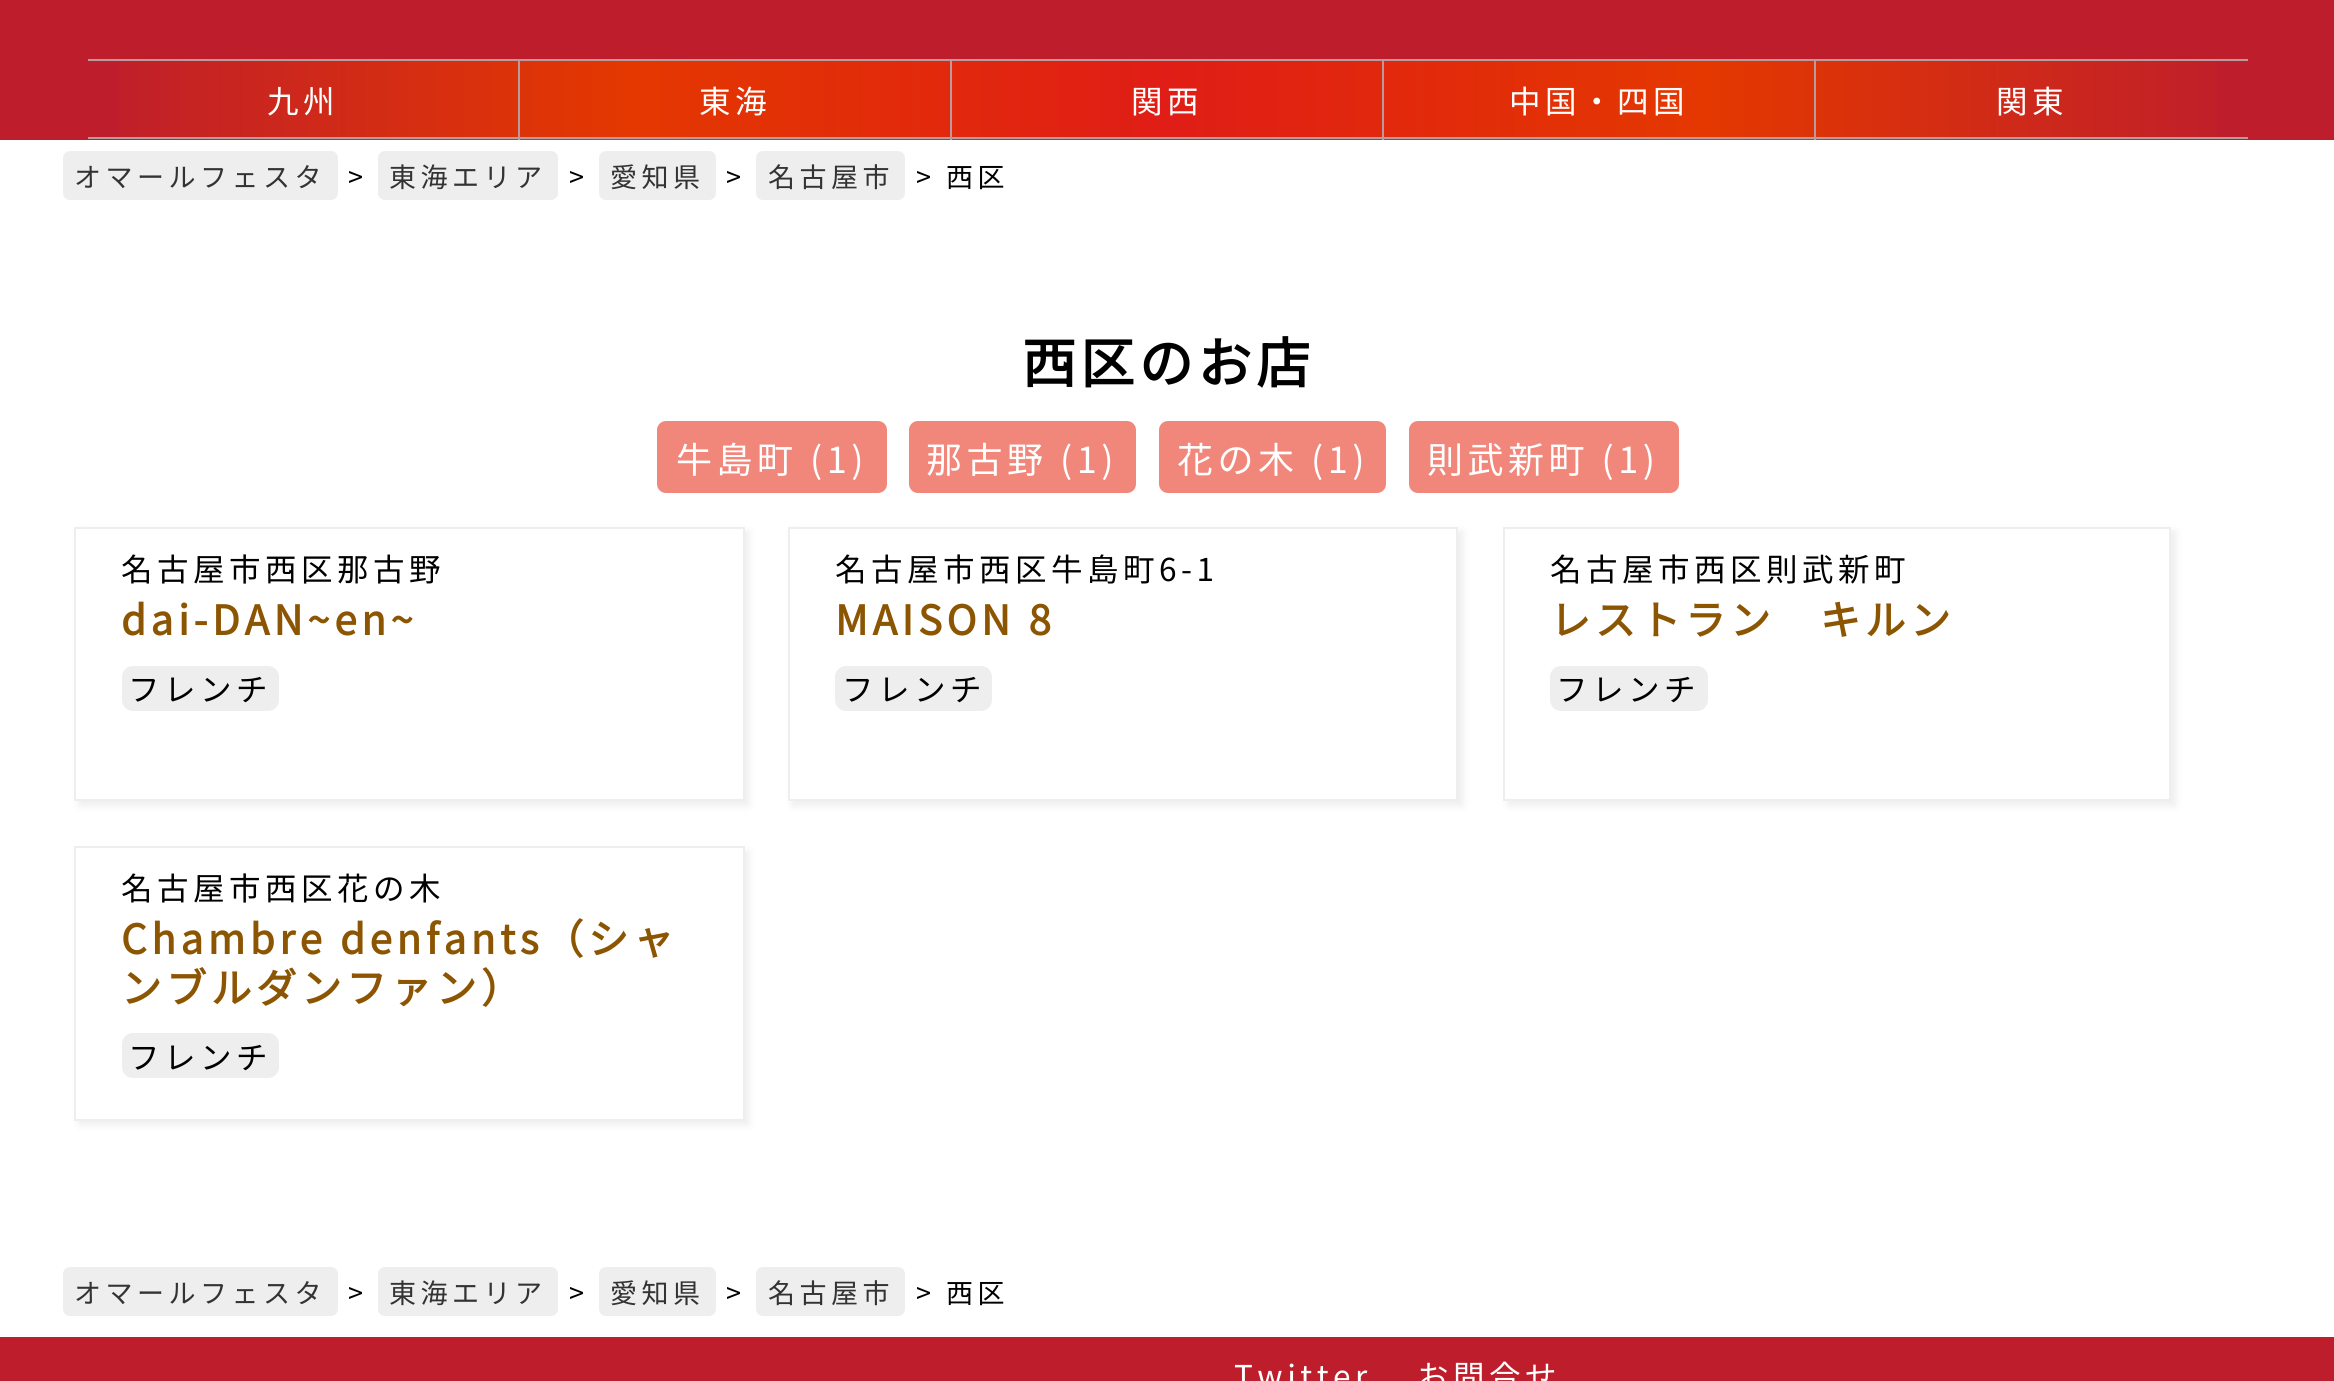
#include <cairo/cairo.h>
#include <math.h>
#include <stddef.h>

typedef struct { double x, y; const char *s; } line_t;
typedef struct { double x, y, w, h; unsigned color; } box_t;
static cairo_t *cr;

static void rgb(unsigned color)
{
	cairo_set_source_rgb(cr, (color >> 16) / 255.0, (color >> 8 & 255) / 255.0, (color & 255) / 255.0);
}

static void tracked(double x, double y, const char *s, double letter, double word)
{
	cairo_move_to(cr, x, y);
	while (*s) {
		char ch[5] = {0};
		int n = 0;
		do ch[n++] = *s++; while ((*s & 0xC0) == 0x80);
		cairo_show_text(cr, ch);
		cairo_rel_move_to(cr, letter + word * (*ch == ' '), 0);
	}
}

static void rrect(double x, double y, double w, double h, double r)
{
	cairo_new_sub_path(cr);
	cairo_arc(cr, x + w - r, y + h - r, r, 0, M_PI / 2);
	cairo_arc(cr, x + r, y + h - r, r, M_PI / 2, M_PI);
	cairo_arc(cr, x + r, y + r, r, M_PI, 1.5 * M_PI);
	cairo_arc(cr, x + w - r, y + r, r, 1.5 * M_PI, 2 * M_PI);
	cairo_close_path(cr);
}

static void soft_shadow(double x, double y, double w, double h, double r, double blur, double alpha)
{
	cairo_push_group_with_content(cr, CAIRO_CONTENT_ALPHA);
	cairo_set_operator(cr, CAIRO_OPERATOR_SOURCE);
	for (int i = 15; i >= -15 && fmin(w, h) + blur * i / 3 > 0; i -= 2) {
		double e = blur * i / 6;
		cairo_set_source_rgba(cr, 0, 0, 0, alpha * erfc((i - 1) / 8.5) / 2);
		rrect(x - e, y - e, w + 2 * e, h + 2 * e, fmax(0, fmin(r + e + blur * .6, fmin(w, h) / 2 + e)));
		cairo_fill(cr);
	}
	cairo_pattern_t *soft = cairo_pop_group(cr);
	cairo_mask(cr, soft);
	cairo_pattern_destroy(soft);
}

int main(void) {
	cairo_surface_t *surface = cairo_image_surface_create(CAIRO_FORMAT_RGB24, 2334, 1381);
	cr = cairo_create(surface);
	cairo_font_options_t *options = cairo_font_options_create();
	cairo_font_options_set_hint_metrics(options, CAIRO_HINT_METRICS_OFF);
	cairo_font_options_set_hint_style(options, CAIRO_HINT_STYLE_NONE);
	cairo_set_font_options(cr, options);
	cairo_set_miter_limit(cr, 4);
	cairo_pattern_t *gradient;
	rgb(0xbe1e2c);
	cairo_paint(cr);
	gradient = cairo_pattern_create_linear(88, 100, 2248, 100);
	cairo_pattern_add_color_stop_rgba(gradient, 0, 0.745, 0.118, 0.173, 1);
	cairo_pattern_add_color_stop_rgba(gradient, 0.25, 0.894, 0.22, 0, 1);
	cairo_pattern_add_color_stop_rgba(gradient, 0.5, 0.878, 0.114, 0.086, 1);
	cairo_pattern_add_color_stop_rgba(gradient, 0.75, 0.894, 0.22, 0, 1);
	cairo_pattern_add_color_stop_rgba(gradient, 1, 0.745, 0.118, 0.173, 1);
	cairo_set_source(cr, gradient);
	cairo_pattern_destroy(gradient);
	cairo_rectangle(cr, 119, 61, 2098, 79);
	cairo_fill(cr);
	{
		static const box_t items[] = {
			{88, 59, 2160, 2, 0xb99b9d},
			{518, 61, 2, 79, 0xb99b9d},
			{88, 137, 430, 2, 0xb99b9d},
			{950, 61, 2, 79, 0xb99b9d},
			{520, 137, 430, 2, 0xb99b9d},
			{1382, 61, 2, 79, 0xb99b9d},
			{952, 137, 430, 2, 0xb99b9d},
			{1814, 61, 2, 79, 0xb99b9d},
			{1384, 137, 430, 2, 0xb99b9d},
			{1816, 137, 432, 2, 0xb99b9d},
			{0, 140, 2334, 1197, 0xffffff},
		};
		for (size_t i = 0; i < sizeof items / sizeof *items; i++) {
			rgb(items[i].color);
			cairo_rectangle(cr, items[i].x, items[i].y, items[i].w, items[i].h);
			cairo_fill(cr);
		}
	}
	rgb(0xeeeeee);
	rrect(63, 151, 275, 49, 7);
	cairo_fill(cr);
	rrect(378, 151, 180, 49, 7);
	cairo_fill(cr);
	rrect(599, 151, 117, 49, 7);
	cairo_fill(cr);
	rrect(756, 151, 149, 49, 7);
	cairo_fill(cr);
	rgb(0xf1867b);
	rrect(657, 421, 230, 72, 9);
	cairo_fill(cr);
	rrect(909, 421, 227, 72, 9);
	cairo_fill(cr);
	rrect(1159, 421, 227, 72, 9);
	cairo_fill(cr);
	rrect(1409, 421, 270, 72, 9);
	cairo_fill(cr);
	cairo_save(cr);
	cairo_set_fill_rule(cr, CAIRO_FILL_RULE_EVEN_ODD);
	cairo_new_path(cr);
	cairo_move_to(cr, 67, 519);
	cairo_line_to(cr, 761, 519);
	cairo_line_to(cr, 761, 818);
	cairo_line_to(cr, 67, 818);
	cairo_close_path(cr);
	cairo_move_to(cr, 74, 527);
	cairo_line_to(cr, 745, 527);
	cairo_line_to(cr, 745, 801);
	cairo_line_to(cr, 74, 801);
	cairo_close_path(cr);
	cairo_clip(cr);
	rgb(0xeeeeee);
	soft_shadow(79, 531, 670, 275, 0, 3.5, 1);
	cairo_restore(cr);
	cairo_rectangle(cr, 75, 528, 669, 272);
	rgb(0xeeeeee);
	cairo_stroke(cr);
	rrect(122, 666, 157, 45, 11);
	cairo_fill(cr);
	cairo_save(cr);
	cairo_set_fill_rule(cr, CAIRO_FILL_RULE_EVEN_ODD);
	cairo_new_path(cr);
	cairo_move_to(cr, 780, 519);
	cairo_line_to(cr, 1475, 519);
	cairo_line_to(cr, 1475, 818);
	cairo_line_to(cr, 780, 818);
	cairo_close_path(cr);
	cairo_move_to(cr, 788, 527);
	cairo_line_to(cr, 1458, 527);
	cairo_line_to(cr, 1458, 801);
	cairo_line_to(cr, 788, 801);
	cairo_close_path(cr);
	cairo_clip(cr);
	rgb(0xeeeeee);
	soft_shadow(792, 531, 671, 275, 0, 3.5, 1);
	cairo_restore(cr);
	cairo_rectangle(cr, 789, 528, 668, 272);
	cairo_stroke(cr);
	rrect(835, 666, 157, 45, 11);
	cairo_fill(cr);
	cairo_save(cr);
	cairo_set_fill_rule(cr, CAIRO_FILL_RULE_EVEN_ODD);
	cairo_new_path(cr);
	cairo_move_to(cr, 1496, 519);
	cairo_line_to(cr, 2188, 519);
	cairo_line_to(cr, 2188, 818);
	cairo_line_to(cr, 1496, 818);
	cairo_close_path(cr);
	cairo_move_to(cr, 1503, 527);
	cairo_line_to(cr, 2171, 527);
	cairo_line_to(cr, 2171, 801);
	cairo_line_to(cr, 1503, 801);
	cairo_close_path(cr);
	cairo_clip(cr);
	rgb(0xeeeeee);
	soft_shadow(1508, 531, 668, 275, 0, 3.5, 1);
	cairo_restore(cr);
	cairo_rectangle(cr, 1504, 528, 666, 272);
	cairo_stroke(cr);
	rrect(1550, 666, 158, 45, 11);
	cairo_fill(cr);
	cairo_save(cr);
	cairo_set_fill_rule(cr, CAIRO_FILL_RULE_EVEN_ODD);
	cairo_new_path(cr);
	cairo_move_to(cr, 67, 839);
	cairo_line_to(cr, 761, 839);
	cairo_line_to(cr, 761, 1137);
	cairo_line_to(cr, 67, 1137);
	cairo_close_path(cr);
	cairo_move_to(cr, 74, 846);
	cairo_line_to(cr, 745, 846);
	cairo_line_to(cr, 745, 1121);
	cairo_line_to(cr, 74, 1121);
	cairo_close_path(cr);
	cairo_clip(cr);
	rgb(0xeeeeee);
	soft_shadow(79, 851, 670, 274, 0, 3.5, 1);
	cairo_restore(cr);
	cairo_rectangle(cr, 75, 847, 669, 273);
	cairo_stroke(cr);
	rrect(122, 1033, 157, 45, 11);
	cairo_fill(cr);
	rrect(63, 1267, 275, 49, 7);
	cairo_fill(cr);
	rrect(378, 1267, 180, 49, 7);
	cairo_fill(cr);
	rrect(599, 1267, 117, 49, 7);
	cairo_fill(cr);
	rrect(756, 1267, 149, 49, 7);
	cairo_fill(cr);
	cairo_select_font_face(cr, "Noto Sans JP Thin", CAIRO_FONT_SLANT_NORMAL, CAIRO_FONT_WEIGHT_NORMAL);
	cairo_set_font_size(cr, 31.5);
	rgb(0xffffff);
	{
		static const line_t items[] = {
			{267, 113, "九州"},
			{699, 113, "東海"},
			{1131, 113, "関西"},
			{1509, 113, "中国・四国"},
			{1996, 113, "関東"},
		};
		for (size_t i = 0; i < sizeof items / sizeof *items; i++) {
			tracked(items[i].x, items[i].y, items[i].s, 4.5, 0);
		}
	}
	cairo_set_font_size(cr, 27);
	rgb(0x333333);
	tracked(74, 187, "オマールフェスタ", 4.5, 0);
	rgb(0x000000);
	tracked(348, 187, ">", 4.5, 0);
	rgb(0x333333);
	tracked(389, 187, "東海エリア", 4.5, 0);
	rgb(0x000000);
	tracked(569, 187, ">", 4.5, 0);
	rgb(0x333333);
	tracked(610, 187, "愛知県", 4.5, 0);
	rgb(0x000000);
	tracked(726, 187, ">", 4.5, 0);
	rgb(0x333333);
	tracked(768, 187, "名古屋市", 4.5, 0);
	rgb(0x000000);
	tracked(916, 187, "> 西区", 4.5, 0);
	cairo_select_font_face(cr, "Noto Sans JP", CAIRO_FONT_SLANT_NORMAL, CAIRO_FONT_WEIGHT_BOLD);
	cairo_set_font_size(cr, 54);
	tracked(1022, 383, "西区のお店", 4.5, 0);
	cairo_select_font_face(cr, "Noto Sans JP Thin", CAIRO_FONT_SLANT_NORMAL, CAIRO_FONT_WEIGHT_NORMAL);
	cairo_set_font_size(cr, 36);
	rgb(0xffffff);
	{
		static const line_t items[] = {
			{676, 473, "牛島町 (1)"},
			{926, 473, "那古野 (1)"},
			{1177, 473, "花の木 (1)"},
			{1427, 473, "則武新町 (1)"},
		};
		for (size_t i = 0; i < sizeof items / sizeof *items; i++) {
			tracked(items[i].x, items[i].y, items[i].s, 4.5, 0);
		}
	}
	cairo_set_font_size(cr, 31.5);
	rgb(0x000000);
	tracked(121, 581, "名古屋市西区那古野", 4.5, 0);
	cairo_select_font_face(cr, "Noto Sans JP", CAIRO_FONT_SLANT_NORMAL, CAIRO_FONT_WEIGHT_BOLD);
	cairo_set_font_size(cr, 40.5);
	rgb(0x8c5502);
	tracked(121, 635, "dai-DAN~en~", 4.5, 0);
	cairo_select_font_face(cr, "Noto Sans JP Thin", CAIRO_FONT_SLANT_NORMAL, CAIRO_FONT_WEIGHT_NORMAL);
	cairo_set_font_size(cr, 31.5);
	rgb(0x000000);
	tracked(128, 701, "フレンチ", 4.5, 0);
	tracked(835, 581, "名古屋市西区牛島町6-1", 4.5, 0);
	cairo_select_font_face(cr, "Noto Sans JP", CAIRO_FONT_SLANT_NORMAL, CAIRO_FONT_WEIGHT_BOLD);
	cairo_set_font_size(cr, 40.5);
	rgb(0x8c5502);
	tracked(835, 635, "MAISON 8", 4.5, 0);
	cairo_select_font_face(cr, "Noto Sans JP Thin", CAIRO_FONT_SLANT_NORMAL, CAIRO_FONT_WEIGHT_NORMAL);
	cairo_set_font_size(cr, 31.5);
	rgb(0x000000);
	tracked(842, 701, "フレンチ", 4.5, 0);
	tracked(1550, 581, "名古屋市西区則武新町", 4.5, 0);
	cairo_select_font_face(cr, "Noto Sans JP", CAIRO_FONT_SLANT_NORMAL, CAIRO_FONT_WEIGHT_BOLD);
	cairo_set_font_size(cr, 40.5);
	rgb(0x8c5502);
	tracked(1550, 635, "レストラン　キルン", 4.5, 0);
	cairo_select_font_face(cr, "Noto Sans JP Thin", CAIRO_FONT_SLANT_NORMAL, CAIRO_FONT_WEIGHT_NORMAL);
	cairo_set_font_size(cr, 31.5);
	rgb(0x000000);
	tracked(1556, 701, "フレンチ", 4.5, 0);
	tracked(121, 900, "名古屋市西区花の木", 4.5, 0);
	cairo_select_font_face(cr, "Noto Sans JP", CAIRO_FONT_SLANT_NORMAL, CAIRO_FONT_WEIGHT_BOLD);
	cairo_set_font_size(cr, 40.5);
	rgb(0x8c5502);
	tracked(121, 954, "Chambre denfants（シャ", 4.5, 0);
	tracked(121, 1003, "ンブルダンファン）", 4.5, 0);
	cairo_select_font_face(cr, "Noto Sans JP Thin", CAIRO_FONT_SLANT_NORMAL, CAIRO_FONT_WEIGHT_NORMAL);
	cairo_set_font_size(cr, 31.5);
	rgb(0x000000);
	tracked(128, 1069, "フレンチ", 4.5, 0);
	cairo_set_font_size(cr, 27);
	rgb(0x333333);
	tracked(74, 1303, "オマールフェスタ", 4.5, 0);
	rgb(0x000000);
	tracked(348, 1303, ">", 4.5, 0);
	rgb(0x333333);
	tracked(389, 1303, "東海エリア", 4.5, 0);
	rgb(0x000000);
	tracked(569, 1303, ">", 4.5, 0);
	rgb(0x333333);
	tracked(610, 1303, "愛知県", 4.5, 0);
	rgb(0x000000);
	tracked(726, 1303, ">", 4.5, 0);
	rgb(0x333333);
	tracked(768, 1303, "名古屋市", 4.5, 0);
	rgb(0x000000);
	tracked(916, 1303, "> 西区", 4.5, 0);
	cairo_set_font_size(cr, 31.5);
	rgb(0xffffff);
	tracked(1234, 1388, "Twitter", 4.5, 0);
	tracked(1417, 1388, "お問合せ", 4.5, 0);
	cairo_surface_write_to_png(surface, "page.png");
	cairo_font_options_destroy(options);
	cairo_destroy(cr);
	cairo_surface_destroy(surface);
	return 0;
}
